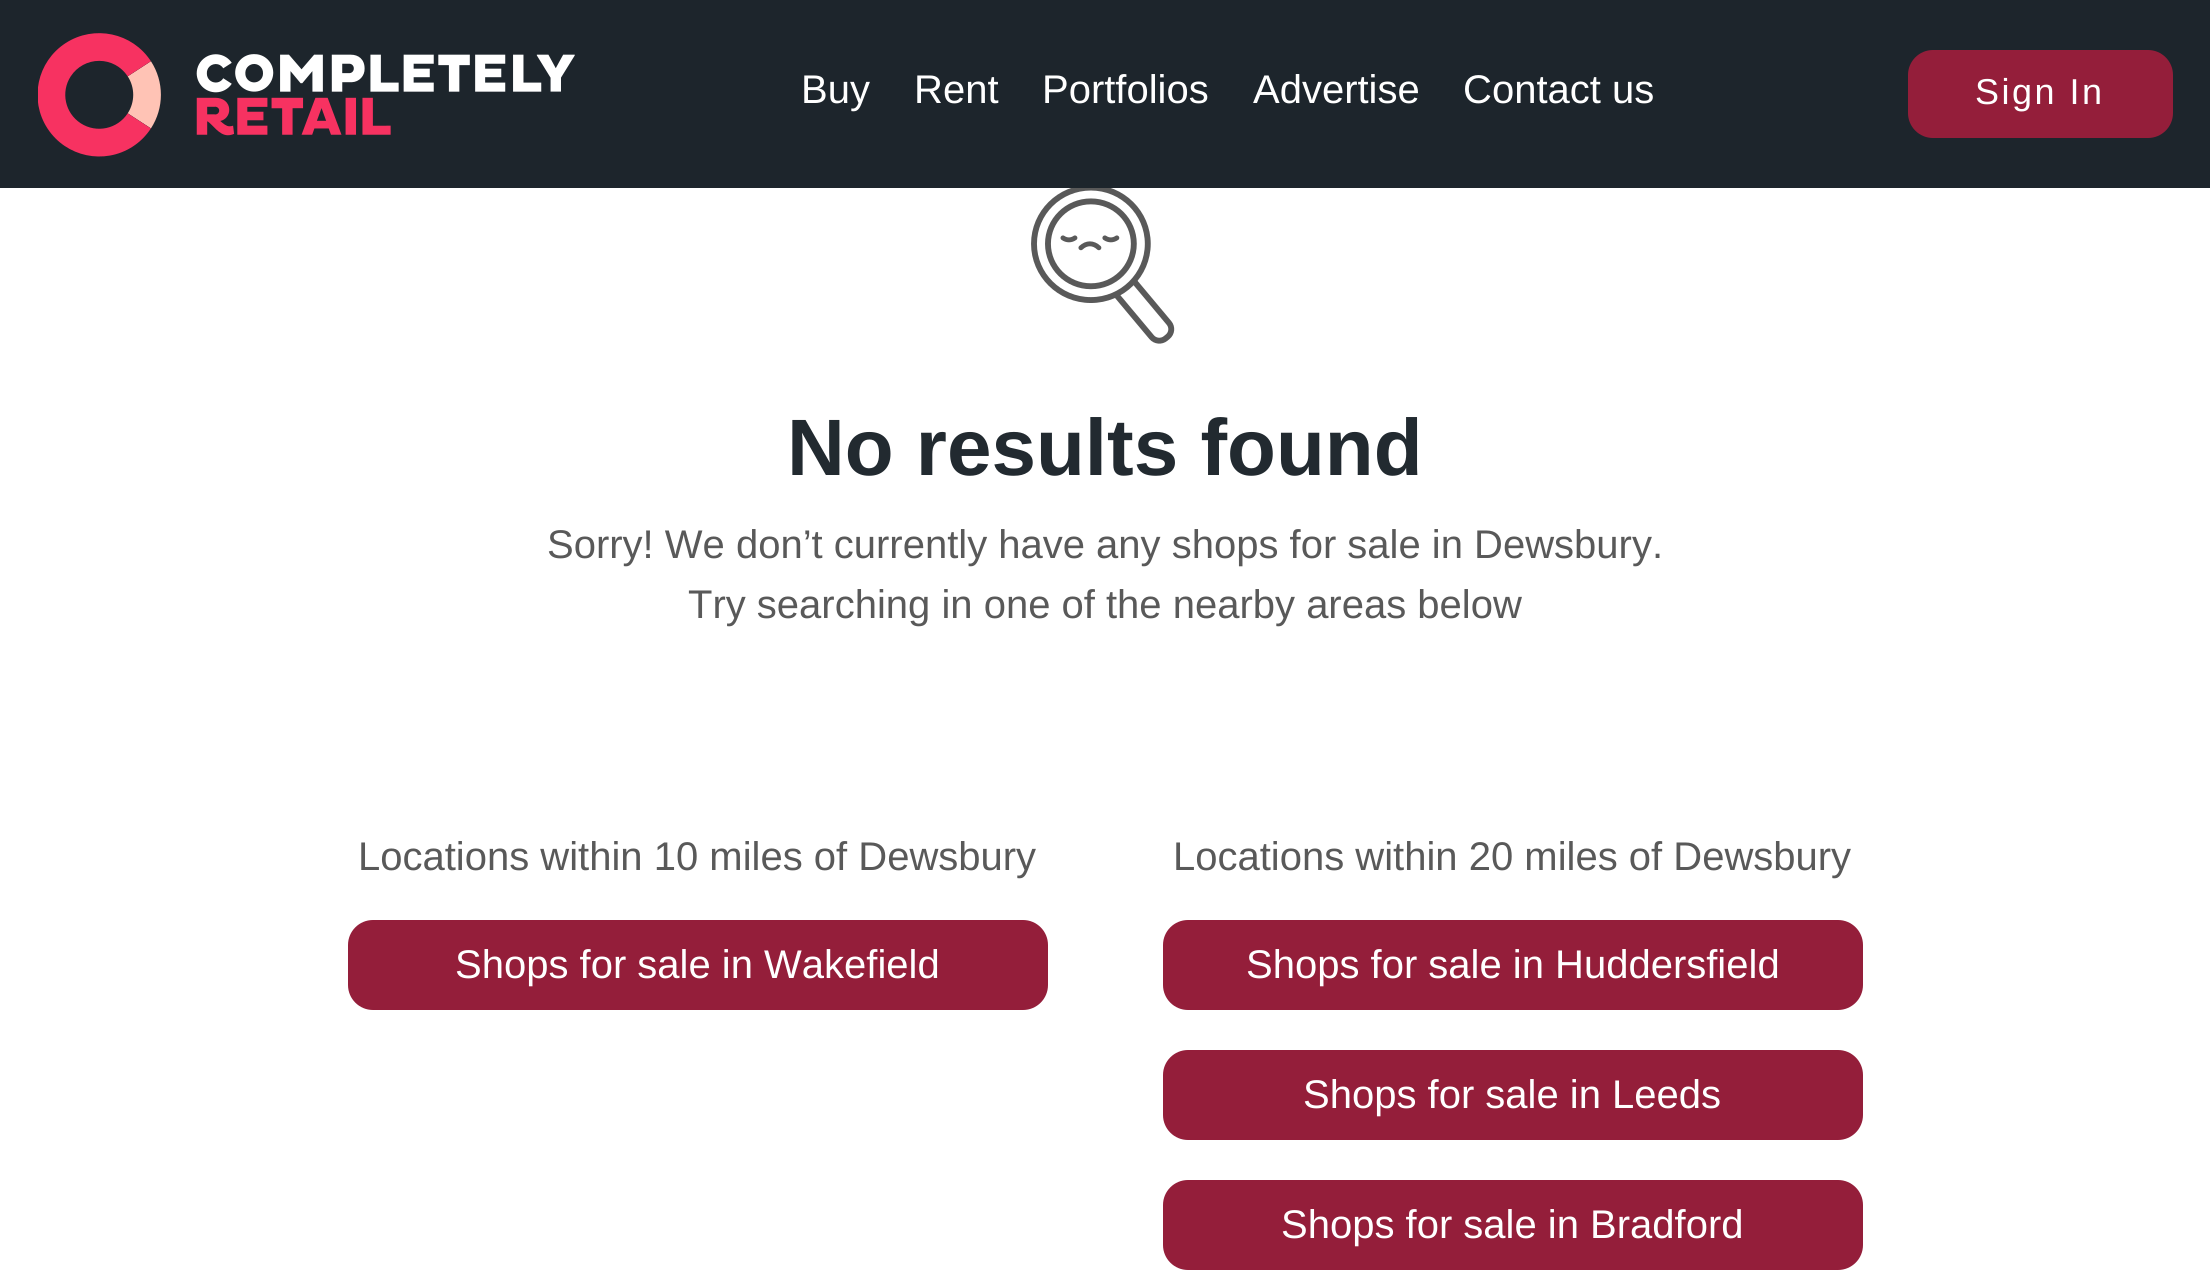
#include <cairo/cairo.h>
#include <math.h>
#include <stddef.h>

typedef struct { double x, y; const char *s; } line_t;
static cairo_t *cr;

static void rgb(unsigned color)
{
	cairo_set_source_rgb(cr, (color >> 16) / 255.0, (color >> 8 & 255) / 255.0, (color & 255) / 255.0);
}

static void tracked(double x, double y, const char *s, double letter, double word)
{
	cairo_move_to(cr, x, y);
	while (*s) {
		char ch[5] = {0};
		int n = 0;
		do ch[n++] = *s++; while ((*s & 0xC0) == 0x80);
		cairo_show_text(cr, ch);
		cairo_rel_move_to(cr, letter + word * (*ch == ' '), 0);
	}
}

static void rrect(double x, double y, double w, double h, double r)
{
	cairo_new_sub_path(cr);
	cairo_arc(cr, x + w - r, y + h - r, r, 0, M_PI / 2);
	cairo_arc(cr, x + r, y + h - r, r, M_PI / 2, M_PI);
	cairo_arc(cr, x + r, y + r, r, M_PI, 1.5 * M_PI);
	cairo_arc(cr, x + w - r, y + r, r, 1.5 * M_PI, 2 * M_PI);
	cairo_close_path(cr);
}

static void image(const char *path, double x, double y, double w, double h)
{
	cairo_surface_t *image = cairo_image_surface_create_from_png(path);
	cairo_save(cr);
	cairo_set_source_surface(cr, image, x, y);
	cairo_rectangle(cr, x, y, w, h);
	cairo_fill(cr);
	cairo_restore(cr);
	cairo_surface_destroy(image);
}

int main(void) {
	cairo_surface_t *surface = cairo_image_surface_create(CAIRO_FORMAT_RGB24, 2210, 1286);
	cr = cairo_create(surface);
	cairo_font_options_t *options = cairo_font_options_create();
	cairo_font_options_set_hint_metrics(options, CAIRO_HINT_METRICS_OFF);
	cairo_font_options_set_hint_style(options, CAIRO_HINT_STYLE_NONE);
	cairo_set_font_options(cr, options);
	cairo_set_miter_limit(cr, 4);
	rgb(0xffffff);
	cairo_paint(cr);
	rgb(0x1d252c);
	cairo_rectangle(cr, 0, 0, 2210, 188);
	cairo_fill(cr);
	image("img/1.png", 38, 33, 537, 124);
	rgb(0x941e3a);
	rrect(1908, 50, 265, 88, 25);
	cairo_fill(cr);
	image("img/2.png", 1031, 188, 144, 156);
	rrect(348, 920, 700, 90, 25);
	cairo_fill(cr);
	rrect(1163, 920, 700, 90, 25);
	cairo_fill(cr);
	rrect(1163, 1050, 700, 90, 25);
	cairo_fill(cr);
	rrect(1163, 1180, 700, 90, 25);
	cairo_fill(cr);
	cairo_select_font_face(cr, "Liberation Sans", CAIRO_FONT_SLANT_NORMAL, CAIRO_FONT_WEIGHT_NORMAL);
	cairo_set_font_size(cr, 40);
	rgb(0xffffff);
	{
		static const line_t items[] = {
			{801, 103, "Buy"},
			{914, 103, "Rent"},
			{1042, 103, "Portfolios"},
			{1253, 103, "Advertise"},
			{1463, 103, "Contact us"},
		};
		for (size_t i = 0; i < sizeof items / sizeof *items; i++) {
			cairo_move_to(cr, items[i].x, items[i].y);
			cairo_show_text(cr, items[i].s);
		}
	}
	cairo_set_font_size(cr, 36);
	tracked(1975, 104, "Sign In", 2.5, 0);
	cairo_select_font_face(cr, "Liberation Sans", CAIRO_FONT_SLANT_NORMAL, CAIRO_FONT_WEIGHT_BOLD);
	cairo_set_font_size(cr, 80);
	rgb(0x222a30);
	cairo_move_to(cr, 787, 475);
	cairo_show_text(cr, "No results found");
	cairo_select_font_face(cr, "Liberation Sans", CAIRO_FONT_SLANT_NORMAL, CAIRO_FONT_WEIGHT_NORMAL);
	cairo_set_font_size(cr, 40);
	rgb(0x595959);
	{
		static const line_t items[] = {
			{547, 558, "Sorry! We don’t currently have any shops for sale in Dewsbury."},
			{688, 618, "Try searching in one of the nearby areas below"},
			{358, 870, "Locations within 10 miles of Dewsbury"},
		};
		for (size_t i = 0; i < sizeof items / sizeof *items; i++) {
			cairo_move_to(cr, items[i].x, items[i].y);
			cairo_show_text(cr, items[i].s);
		}
	}
	rgb(0xffffff);
	cairo_move_to(cr, 455, 978);
	cairo_show_text(cr, "Shops for sale in Wakefield");
	rgb(0x595959);
	cairo_move_to(cr, 1173, 870);
	cairo_show_text(cr, "Locations within 20 miles of Dewsbury");
	rgb(0xffffff);
	{
		static const line_t items[] = {
			{1246, 978, "Shops for sale in Huddersfield"},
			{1303, 1108, "Shops for sale in Leeds"},
			{1281, 1238, "Shops for sale in Bradford"},
		};
		for (size_t i = 0; i < sizeof items / sizeof *items; i++) {
			cairo_move_to(cr, items[i].x, items[i].y);
			cairo_show_text(cr, items[i].s);
		}
	}
	cairo_surface_write_to_png(surface, "page.png");
	cairo_font_options_destroy(options);
	cairo_destroy(cr);
	cairo_surface_destroy(surface);
	return 0;
}
